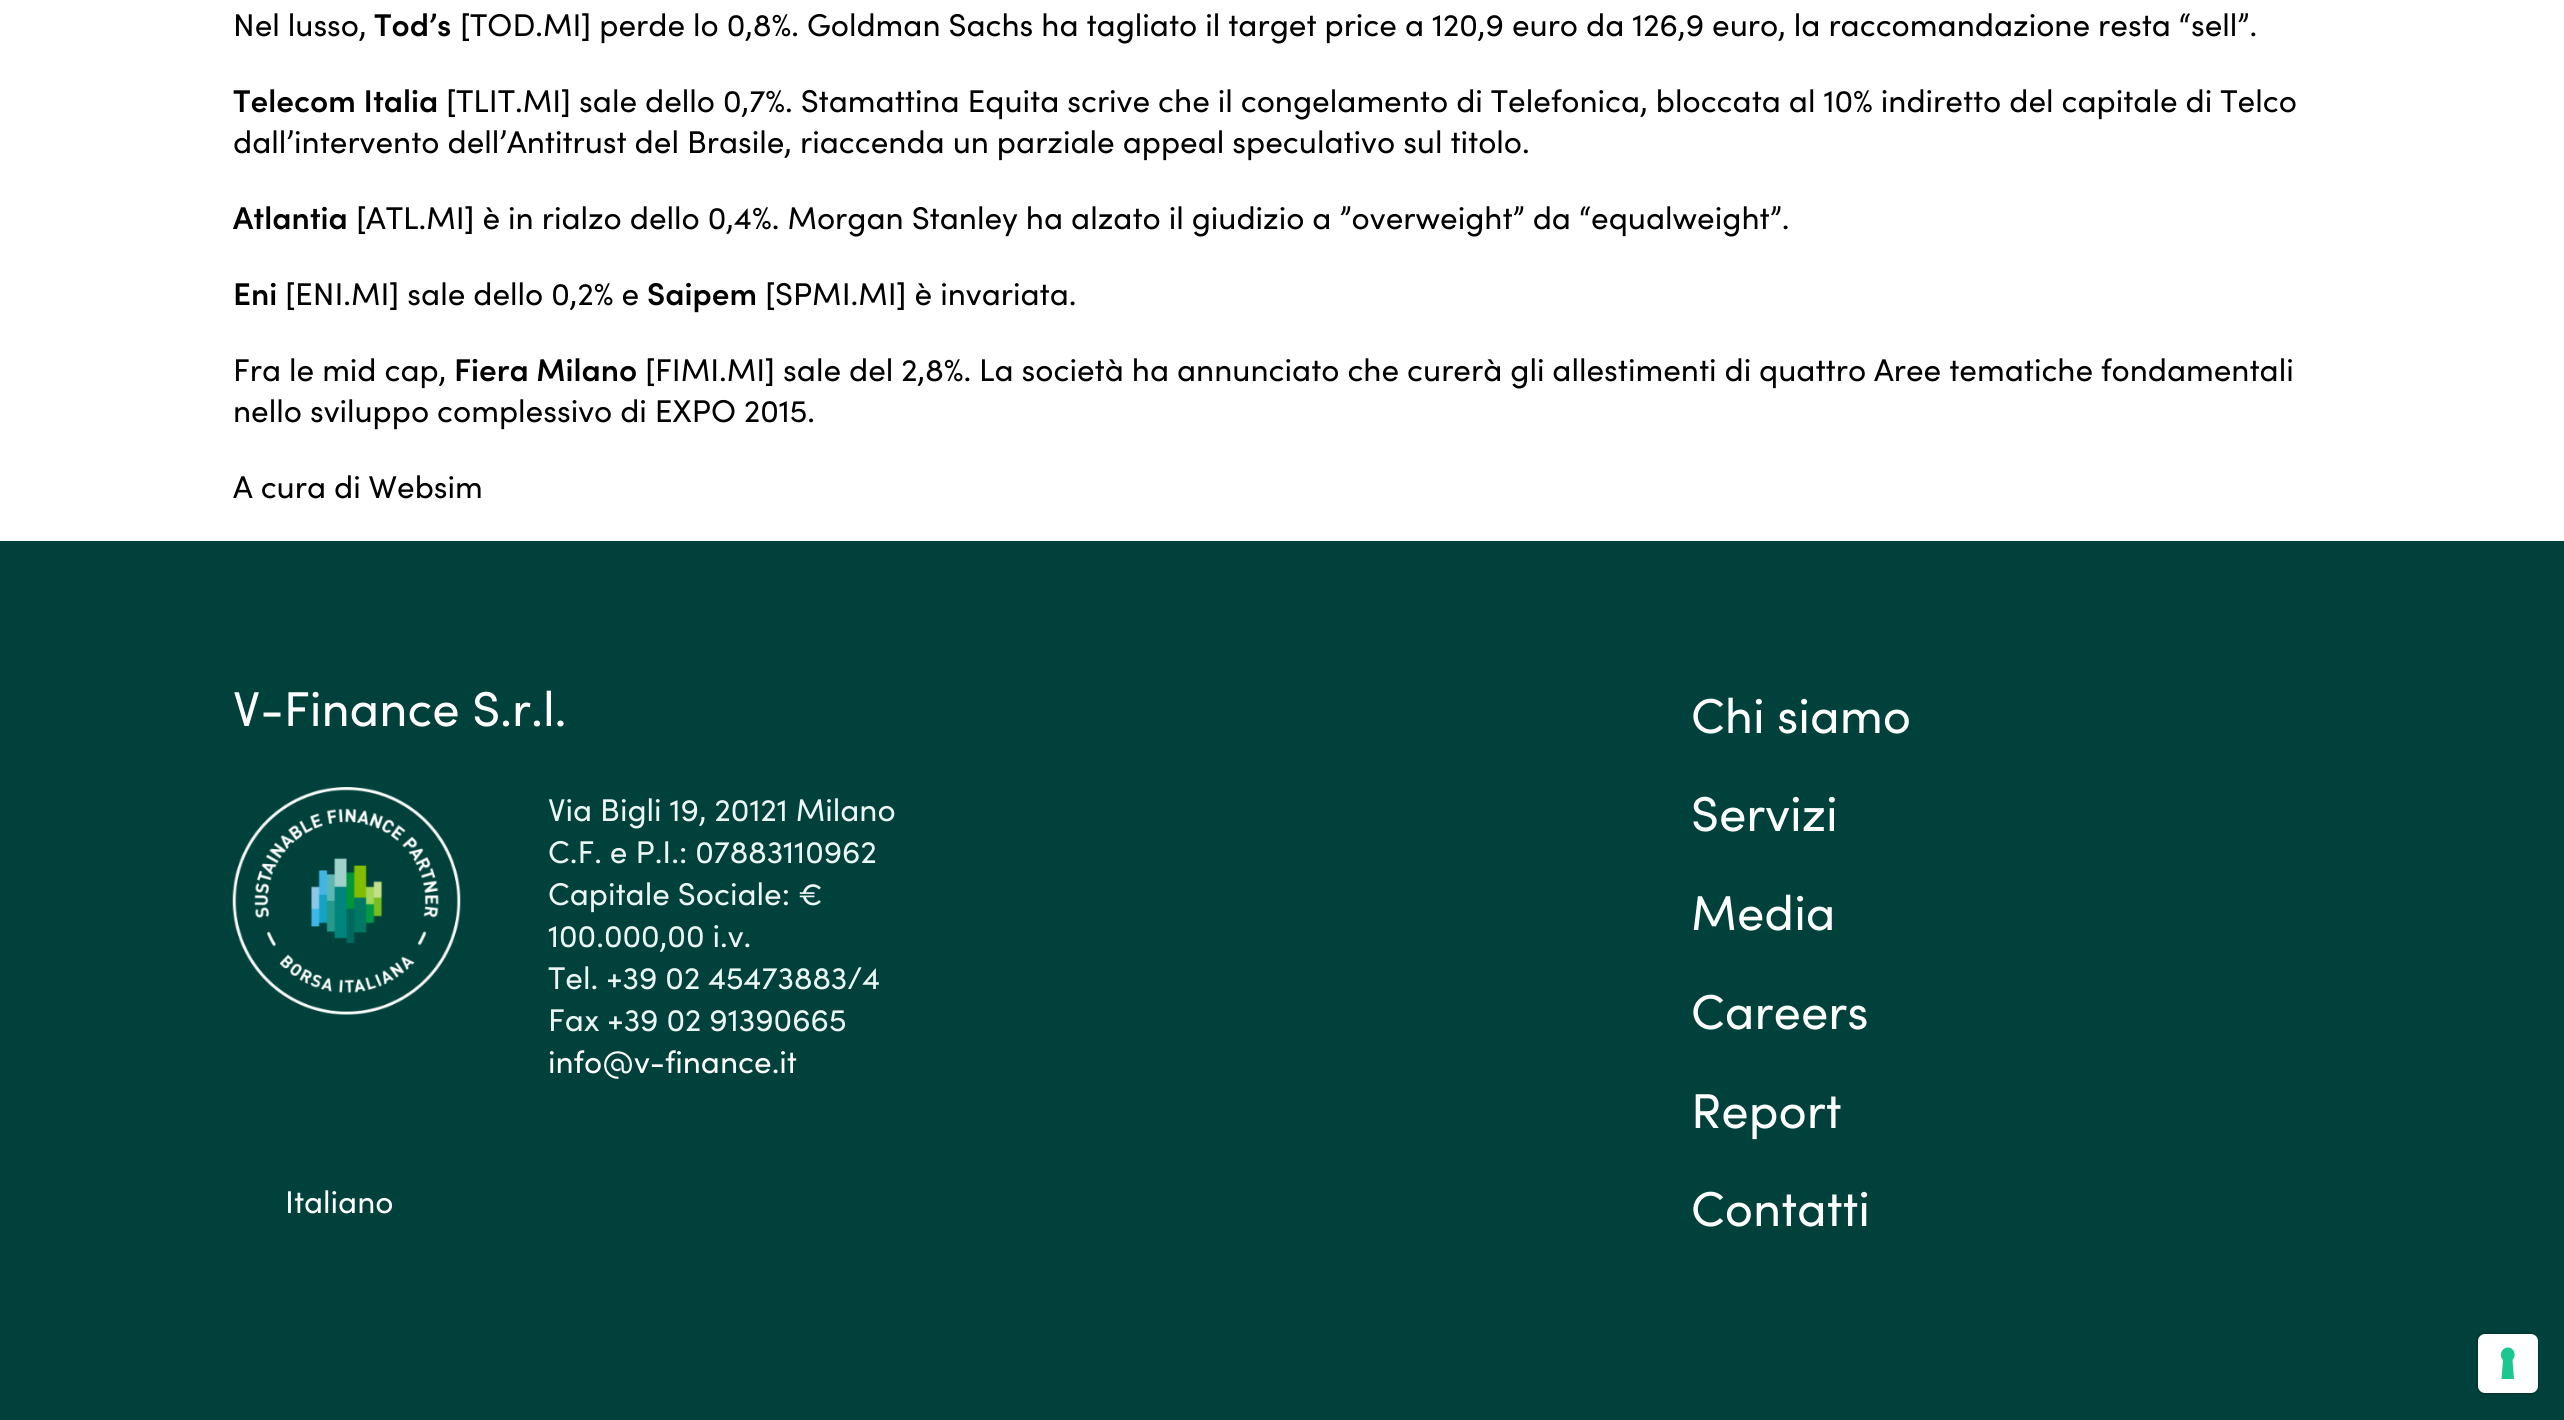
#include <cairo/cairo.h>
#include <math.h>
#include <stddef.h>

typedef struct { double x, y; const char *s; } line_t;
static cairo_t *cr;

static void rgb(unsigned color)
{
	cairo_set_source_rgb(cr, (color >> 16) / 255.0, (color >> 8 & 255) / 255.0, (color & 255) / 255.0);
}

static void rrect(double x, double y, double w, double h, double r)
{
	cairo_new_sub_path(cr);
	cairo_arc(cr, x + w - r, y + h - r, r, 0, M_PI / 2);
	cairo_arc(cr, x + r, y + h - r, r, M_PI / 2, M_PI);
	cairo_arc(cr, x + r, y + r, r, M_PI, 1.5 * M_PI);
	cairo_arc(cr, x + w - r, y + r, r, 1.5 * M_PI, 2 * M_PI);
	cairo_close_path(cr);
}

static void image(const char *path, double x, double y, double w, double h)
{
	cairo_surface_t *image = cairo_image_surface_create_from_png(path);
	cairo_save(cr);
	cairo_set_source_surface(cr, image, x, y);
	cairo_rectangle(cr, x, y, w, h);
	cairo_fill(cr);
	cairo_restore(cr);
	cairo_surface_destroy(image);
}

int main(void) {
	cairo_surface_t *surface = cairo_image_surface_create(CAIRO_FORMAT_RGB24, 2564, 1420);
	cr = cairo_create(surface);
	cairo_font_options_t *options = cairo_font_options_create();
	cairo_font_options_set_hint_metrics(options, CAIRO_HINT_METRICS_OFF);
	cairo_font_options_set_hint_style(options, CAIRO_HINT_STYLE_NONE);
	cairo_set_font_options(cr, options);
	cairo_set_miter_limit(cr, 4);
	rgb(0xffffff);
	cairo_paint(cr);
	rgb(0x00423b);
	cairo_rectangle(cr, 0, 541, 2564, 879);
	cairo_fill(cr);
	image("img/1.png", 232, 787, 229, 228);
	rrect(2477, 1333, 61, 61, 8);
	rgb(0x003832);
	cairo_stroke(cr);
	rgb(0xffffff);
	rrect(2478, 1334, 60, 59, 7);
	cairo_fill(cr);
	rgb(0x1cc691);
	cairo_set_fill_rule(cr, CAIRO_FILL_RULE_EVEN_ODD);
	cairo_new_path(cr);
	cairo_move_to(cr, 2508, 1347.5);
	cairo_curve_to(cr, 2514, 1347.5, 2517, 1355.5, 2512.5, 1360);
	cairo_line_to(cr, 2514, 1379);
	cairo_line_to(cr, 2501.5, 1379);
	cairo_line_to(cr, 2503, 1360);
	cairo_curve_to(cr, 2498.5, 1355.5, 2501.5, 1347.5, 2508, 1347.5);
	cairo_close_path(cr);
	cairo_fill(cr);
	cairo_select_font_face(cr, "Sofia", CAIRO_FONT_SLANT_NORMAL, CAIRO_FONT_WEIGHT_NORMAL);
	cairo_set_font_size(cr, 31.5);
	rgb(0x000000);
	cairo_move_to(cr, 233, 36);
	cairo_show_text(cr, "Nel lusso,");
	cairo_select_font_face(cr, "Sofia SemiBold", CAIRO_FONT_SLANT_NORMAL, CAIRO_FONT_WEIGHT_NORMAL);
	cairo_move_to(cr, 374, 36);
	cairo_show_text(cr, "Tod’s");
	cairo_select_font_face(cr, "Sofia", CAIRO_FONT_SLANT_NORMAL, CAIRO_FONT_WEIGHT_NORMAL);
	cairo_move_to(cr, 460, 36);
	cairo_show_text(cr, "[TOD.MI] perde lo 0,8%. Goldman Sachs ha tagliato il target price a 120,9 euro da 126,9 euro, la raccomandazione resta “sell”.");
	cairo_select_font_face(cr, "Sofia SemiBold", CAIRO_FONT_SLANT_NORMAL, CAIRO_FONT_WEIGHT_NORMAL);
	cairo_move_to(cr, 233, 112);
	cairo_show_text(cr, "Telecom Italia");
	cairo_select_font_face(cr, "Sofia", CAIRO_FONT_SLANT_NORMAL, CAIRO_FONT_WEIGHT_NORMAL);
	cairo_move_to(cr, 446, 112);
	cairo_show_text(cr, "[TLIT.MI] sale dello 0,7%. Stamattina Equita scrive che il congelamento di Telefonica, bloccata al 10% indiretto del capitale di Telco");
	cairo_move_to(cr, 233, 153);
	cairo_show_text(cr, "dall’intervento dell’Antitrust del Brasile, riaccenda un parziale appeal speculativo sul titolo.");
	cairo_select_font_face(cr, "Sofia SemiBold", CAIRO_FONT_SLANT_NORMAL, CAIRO_FONT_WEIGHT_NORMAL);
	cairo_move_to(cr, 233, 229);
	cairo_show_text(cr, "Atlantia");
	cairo_select_font_face(cr, "Sofia", CAIRO_FONT_SLANT_NORMAL, CAIRO_FONT_WEIGHT_NORMAL);
	cairo_move_to(cr, 356, 229);
	cairo_show_text(cr, "[ATL.MI] è in rialzo dello 0,4%. Morgan Stanley ha alzato il giudizio a ”overweight” da “equalweight”.");
	cairo_select_font_face(cr, "Sofia SemiBold", CAIRO_FONT_SLANT_NORMAL, CAIRO_FONT_WEIGHT_NORMAL);
	cairo_move_to(cr, 233, 305);
	cairo_show_text(cr, "Eni");
	cairo_select_font_face(cr, "Sofia", CAIRO_FONT_SLANT_NORMAL, CAIRO_FONT_WEIGHT_NORMAL);
	cairo_move_to(cr, 285, 305);
	cairo_show_text(cr, "[ENI.MI] sale dello 0,2% e");
	cairo_select_font_face(cr, "Sofia SemiBold", CAIRO_FONT_SLANT_NORMAL, CAIRO_FONT_WEIGHT_NORMAL);
	cairo_move_to(cr, 647, 305);
	cairo_show_text(cr, "Saipem");
	cairo_select_font_face(cr, "Sofia", CAIRO_FONT_SLANT_NORMAL, CAIRO_FONT_WEIGHT_NORMAL);
	cairo_move_to(cr, 765, 305);
	cairo_show_text(cr, "[SPMI.MI] è invariata.");
	cairo_move_to(cr, 233, 381);
	cairo_show_text(cr, "Fra le mid cap,");
	cairo_select_font_face(cr, "Sofia SemiBold", CAIRO_FONT_SLANT_NORMAL, CAIRO_FONT_WEIGHT_NORMAL);
	cairo_move_to(cr, 454, 381);
	cairo_show_text(cr, "Fiera Milano");
	cairo_select_font_face(cr, "Sofia", CAIRO_FONT_SLANT_NORMAL, CAIRO_FONT_WEIGHT_NORMAL);
	{
		static const line_t items[] = {
			{645, 381, "[FIMI.MI] sale del 2,8%. La società ha annunciato che curerà gli allestimenti di quattro Aree tematiche fondamentali"},
			{233, 422, "nello sviluppo complessivo di EXPO 2015."},
			{233, 498, "A cura di Websim"},
		};
		for (size_t i = 0; i < sizeof items / sizeof *items; i++) {
			cairo_move_to(cr, items[i].x, items[i].y);
			cairo_show_text(cr, items[i].s);
		}
	}
	cairo_set_font_size(cr, 49);
	rgb(0xffffff);
	cairo_move_to(cr, 233, 726);
	cairo_show_text(cr, "V-Finance S.r.l.");
	cairo_set_font_size(cr, 31.5);
	rgb(0xebf6f5);
	{
		static const line_t items[] = {
			{548, 821, "Via Bigli 19, 20121 Milano"},
			{548, 863, "C.F. e P.I.: 07883110962"},
			{548, 905, "Capitale Sociale: €"},
			{548, 947, "100.000,00 i.v."},
			{548, 989, "Tel. +39 02 45473883/4"},
			{548, 1031, "Fax +39 02 91390665"},
		};
		for (size_t i = 0; i < sizeof items / sizeof *items; i++) {
			cairo_move_to(cr, items[i].x, items[i].y);
			cairo_show_text(cr, items[i].s);
		}
	}
	rgb(0xffffff);
	cairo_move_to(cr, 548, 1073);
	cairo_show_text(cr, "info@v-finance.it");
	cairo_move_to(cr, 285, 1213);
	cairo_show_text(cr, "Italiano");
	cairo_set_font_size(cr, 49);
	{
		static const line_t items[] = {
			{1691, 733, "Chi siamo"},
			{1691, 831, "Servizi"},
			{1691, 930, "Media"},
			{1691, 1029, "Careers"},
			{1691, 1128, "Report"},
			{1691, 1226, "Contatti"},
		};
		for (size_t i = 0; i < sizeof items / sizeof *items; i++) {
			cairo_move_to(cr, items[i].x, items[i].y);
			cairo_show_text(cr, items[i].s);
		}
	}
	cairo_surface_write_to_png(surface, "page.png");
	cairo_font_options_destroy(options);
	cairo_destroy(cr);
	cairo_surface_destroy(surface);
	return 0;
}
